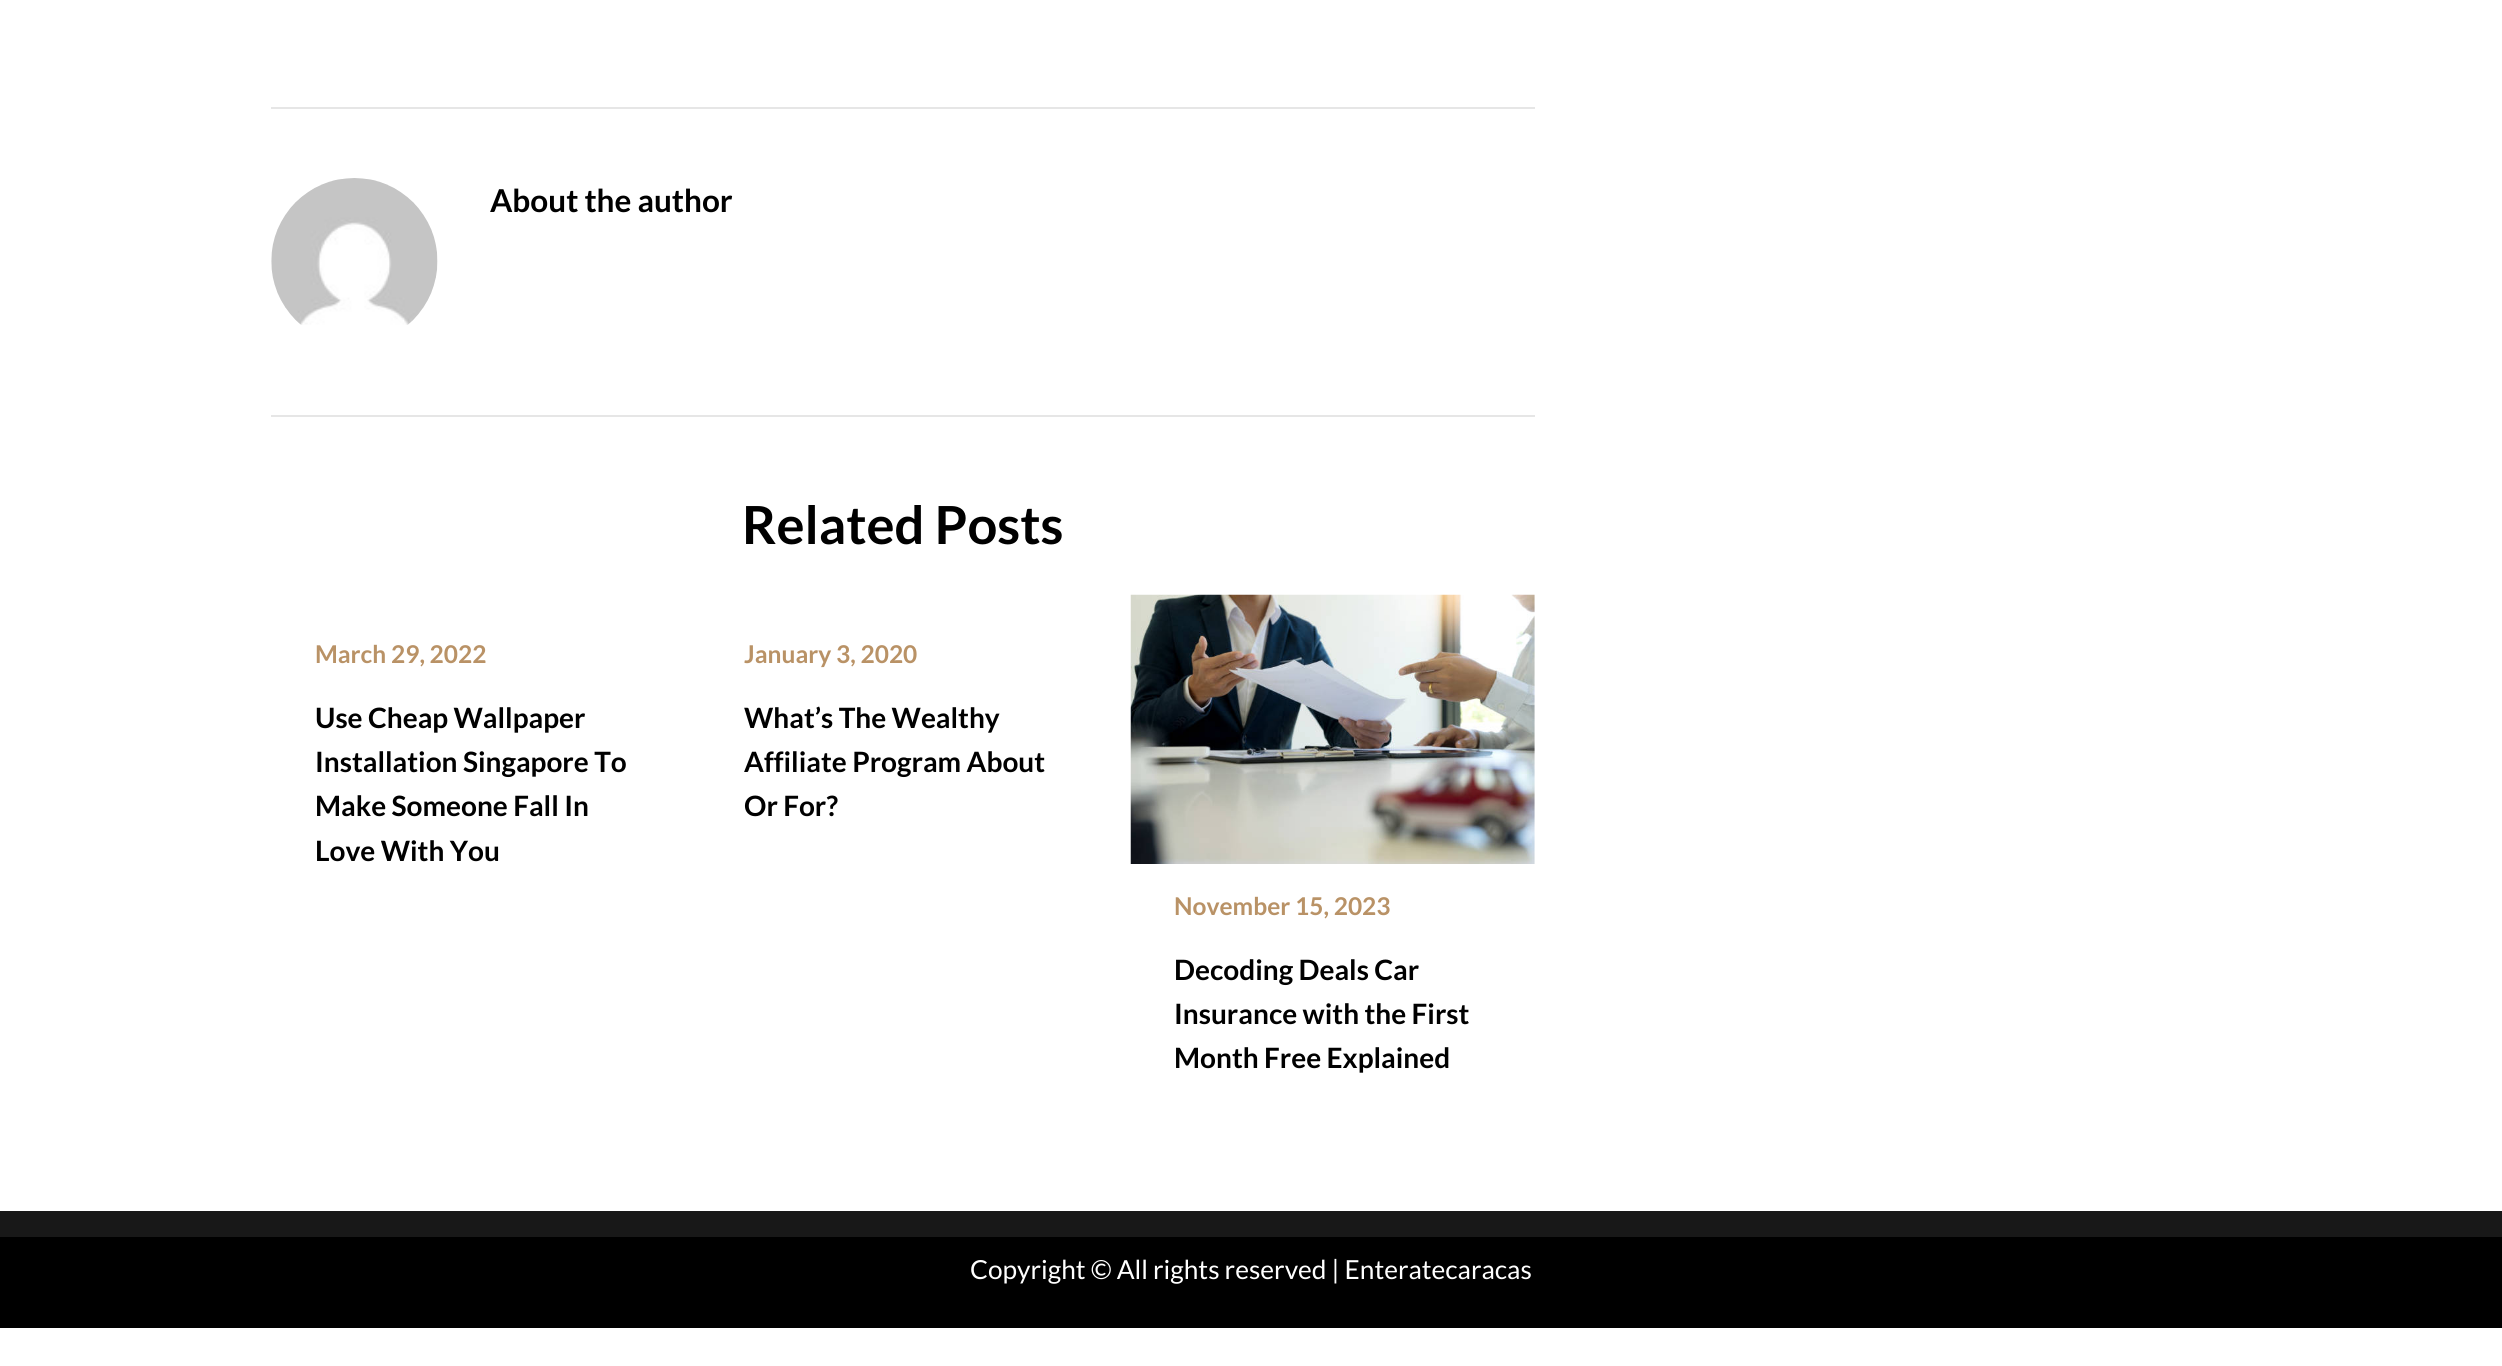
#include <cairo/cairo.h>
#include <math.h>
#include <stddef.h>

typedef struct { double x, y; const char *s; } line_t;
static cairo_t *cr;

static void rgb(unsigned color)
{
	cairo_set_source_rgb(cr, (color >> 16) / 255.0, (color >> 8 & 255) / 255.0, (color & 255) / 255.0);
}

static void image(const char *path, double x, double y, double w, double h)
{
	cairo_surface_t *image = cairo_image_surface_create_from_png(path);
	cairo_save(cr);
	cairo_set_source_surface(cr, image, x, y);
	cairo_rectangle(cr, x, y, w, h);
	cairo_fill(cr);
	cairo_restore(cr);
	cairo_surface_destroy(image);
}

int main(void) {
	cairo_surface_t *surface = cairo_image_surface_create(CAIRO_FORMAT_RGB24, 2502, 1366);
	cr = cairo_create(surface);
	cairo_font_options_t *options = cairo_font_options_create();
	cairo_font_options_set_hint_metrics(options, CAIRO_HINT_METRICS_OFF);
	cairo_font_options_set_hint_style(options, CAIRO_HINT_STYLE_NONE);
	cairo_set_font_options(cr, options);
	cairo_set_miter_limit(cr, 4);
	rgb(0xffffff);
	cairo_paint(cr);
	rgb(0xe6e6e6);
	cairo_rectangle(cr, 271, 107, 1264, 2);
	cairo_fill(cr);
	image("img/1.png", 271, 178, 167, 147);
	cairo_rectangle(cr, 271, 415, 1264, 2);
	cairo_fill(cr);
	image("img/2.png", 1130, 594, 405, 270);
	rgb(0x181818);
	cairo_rectangle(cr, 0, 1211, 2502, 26);
	cairo_fill(cr);
	rgb(0x000000);
	cairo_rectangle(cr, 0, 1237, 2502, 91);
	cairo_fill(cr);
	cairo_select_font_face(cr, "Lato", CAIRO_FONT_SLANT_NORMAL, CAIRO_FONT_WEIGHT_BOLD);
	cairo_set_font_size(cr, 31.5);
	cairo_move_to(cr, 490, 212);
	cairo_show_text(cr, "About the author");
	cairo_set_font_size(cr, 52.5);
	cairo_move_to(cr, 742, 544);
	cairo_show_text(cr, "Related Posts");
	cairo_set_font_size(cr, 24.5);
	rgb(0xb99266);
	cairo_move_to(cr, 315, 663);
	cairo_show_text(cr, "March 29, 2022");
	cairo_set_font_size(cr, 28);
	rgb(0x000000);
	{
		static const line_t items[] = {
			{315, 728, "Use Cheap Wallpaper"},
			{315, 772, "Installation Singapore To"},
			{315, 816, "Make Someone Fall In"},
			{315, 861, "Love With You"},
		};
		for (size_t i = 0; i < sizeof items / sizeof *items; i++) {
			cairo_move_to(cr, items[i].x, items[i].y);
			cairo_show_text(cr, items[i].s);
		}
	}
	cairo_set_font_size(cr, 24.5);
	rgb(0xb99266);
	cairo_move_to(cr, 744, 663);
	cairo_show_text(cr, "January 3, 2020");
	cairo_set_font_size(cr, 28);
	rgb(0x000000);
	{
		static const line_t items[] = {
			{744, 728, "What’s The Wealthy"},
			{744, 772, "Affiliate Program About"},
			{744, 816, "Or For?"},
		};
		for (size_t i = 0; i < sizeof items / sizeof *items; i++) {
			cairo_move_to(cr, items[i].x, items[i].y);
			cairo_show_text(cr, items[i].s);
		}
	}
	cairo_set_font_size(cr, 24.5);
	rgb(0xb99266);
	cairo_move_to(cr, 1174, 915);
	cairo_show_text(cr, "November 15, 2023");
	cairo_set_font_size(cr, 28);
	rgb(0x000000);
	{
		static const line_t items[] = {
			{1174, 980, "Decoding Deals Car"},
			{1174, 1024, "Insurance with the First"},
			{1174, 1068, "Month Free Explained"},
		};
		for (size_t i = 0; i < sizeof items / sizeof *items; i++) {
			cairo_move_to(cr, items[i].x, items[i].y);
			cairo_show_text(cr, items[i].s);
		}
	}
	cairo_select_font_face(cr, "Lato", CAIRO_FONT_SLANT_NORMAL, CAIRO_FONT_WEIGHT_NORMAL);
	cairo_set_font_size(cr, 26.25);
	rgb(0xffffff);
	cairo_move_to(cr, 970, 1279);
	cairo_show_text(cr, "Copyright © All rights reserved | Enteratecaracas");
	cairo_surface_write_to_png(surface, "page.png");
	cairo_font_options_destroy(options);
	cairo_destroy(cr);
	cairo_surface_destroy(surface);
	return 0;
}
